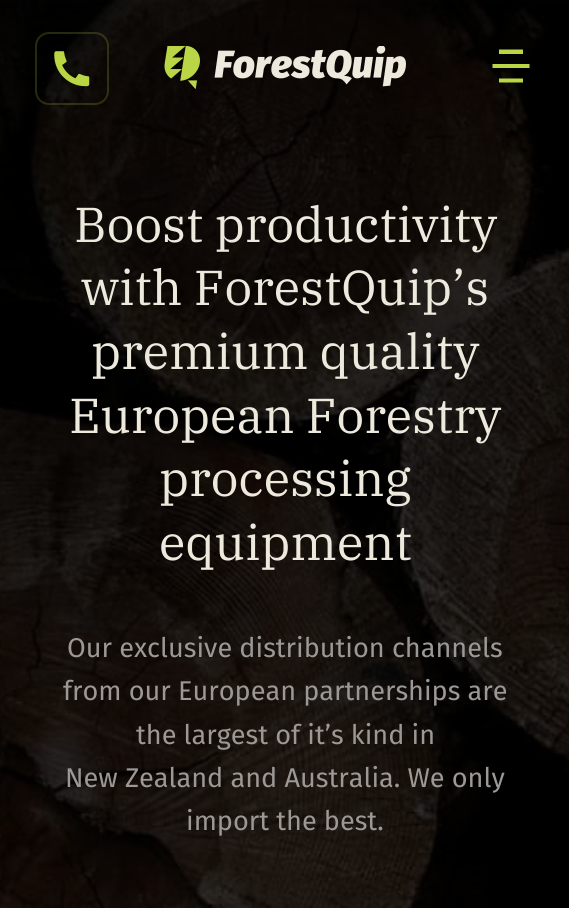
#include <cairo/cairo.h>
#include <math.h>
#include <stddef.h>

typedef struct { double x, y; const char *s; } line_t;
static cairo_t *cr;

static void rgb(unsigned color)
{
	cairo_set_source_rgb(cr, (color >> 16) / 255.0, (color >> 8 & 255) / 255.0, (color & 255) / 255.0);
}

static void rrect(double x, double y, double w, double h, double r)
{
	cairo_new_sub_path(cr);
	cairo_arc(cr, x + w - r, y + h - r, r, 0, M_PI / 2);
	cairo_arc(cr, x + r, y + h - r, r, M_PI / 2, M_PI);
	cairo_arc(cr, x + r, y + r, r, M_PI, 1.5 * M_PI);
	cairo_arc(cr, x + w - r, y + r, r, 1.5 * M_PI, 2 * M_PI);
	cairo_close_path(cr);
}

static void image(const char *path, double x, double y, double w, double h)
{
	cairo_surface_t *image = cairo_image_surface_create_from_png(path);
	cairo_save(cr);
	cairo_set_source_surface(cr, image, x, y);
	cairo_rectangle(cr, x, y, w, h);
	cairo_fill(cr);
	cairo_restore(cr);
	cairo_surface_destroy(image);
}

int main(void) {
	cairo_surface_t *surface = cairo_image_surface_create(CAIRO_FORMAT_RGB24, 569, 908);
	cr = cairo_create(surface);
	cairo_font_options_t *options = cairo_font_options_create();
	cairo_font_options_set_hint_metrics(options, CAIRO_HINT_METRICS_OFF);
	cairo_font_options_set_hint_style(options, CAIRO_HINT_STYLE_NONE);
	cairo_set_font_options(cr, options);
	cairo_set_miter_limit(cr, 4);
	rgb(0xffffff);
	cairo_paint(cr);
	image("img/3.png", 0, 0, 569, 908);
	rrect(36, 33, 72, 71, 13);
	cairo_set_source_rgba(cr, 0.729, 0.839, 0.271, 0.2);
	cairo_stroke(cr);
	image("img/1.png", 54, 51, 36, 36);
	image("img/2.png", 164, 46, 242, 43);
	rgb(0xbad645);
	cairo_new_path(cr);
	cairo_move_to(cr, 523, 78.5);
	cairo_line_to(cr, 523, 82.5);
	cairo_line_to(cr, 499, 82.5);
	cairo_line_to(cr, 499, 78.5);
	cairo_close_path(cr);
	cairo_move_to(cr, 529.5, 64);
	cairo_line_to(cr, 529.5, 68);
	cairo_line_to(cr, 492.5, 68);
	cairo_line_to(cr, 492.5, 64);
	cairo_close_path(cr);
	cairo_move_to(cr, 523, 49.5);
	cairo_line_to(cr, 523, 54);
	cairo_line_to(cr, 499, 54);
	cairo_line_to(cr, 499, 49.5);
	cairo_close_path(cr);
	cairo_fill(cr);
	cairo_select_font_face(cr, "IBM Plex Serif", CAIRO_FONT_SLANT_NORMAL, CAIRO_FONT_WEIGHT_NORMAL);
	cairo_set_font_size(cr, 49);
	rgb(0xede9dd);
	{
		static const line_t items[] = {
			{74, 242, "Boost productivity"},
			{81, 305, "with ForestQuip’s"},
			{91, 369, "premium quality"},
			{69, 433, "European Forestry"},
			{159, 496, "processing"},
			{159, 560, "equipment"},
		};
		for (size_t i = 0; i < sizeof items / sizeof *items; i++) {
			cairo_move_to(cr, items[i].x, items[i].y);
			cairo_show_text(cr, items[i].s);
		}
	}
	cairo_select_font_face(cr, "Fira Sans", CAIRO_FONT_SLANT_NORMAL, CAIRO_FONT_WEIGHT_NORMAL);
	cairo_set_font_size(cr, 27.1);
	rgb(0x9b9896);
	{
		static const line_t items[] = {
			{67, 657, "Our exclusive distribution channels"},
			{63, 700, "from our European partnerships are"},
			{136, 744, "the largest of it’s kind in"},
			{65, 787, "New Zealand and Australia. We only"},
			{186, 830, "import the best."},
		};
		for (size_t i = 0; i < sizeof items / sizeof *items; i++) {
			cairo_move_to(cr, items[i].x, items[i].y);
			cairo_show_text(cr, items[i].s);
		}
	}
	cairo_surface_write_to_png(surface, "page.png");
	cairo_font_options_destroy(options);
	cairo_destroy(cr);
	cairo_surface_destroy(surface);
	return 0;
}
